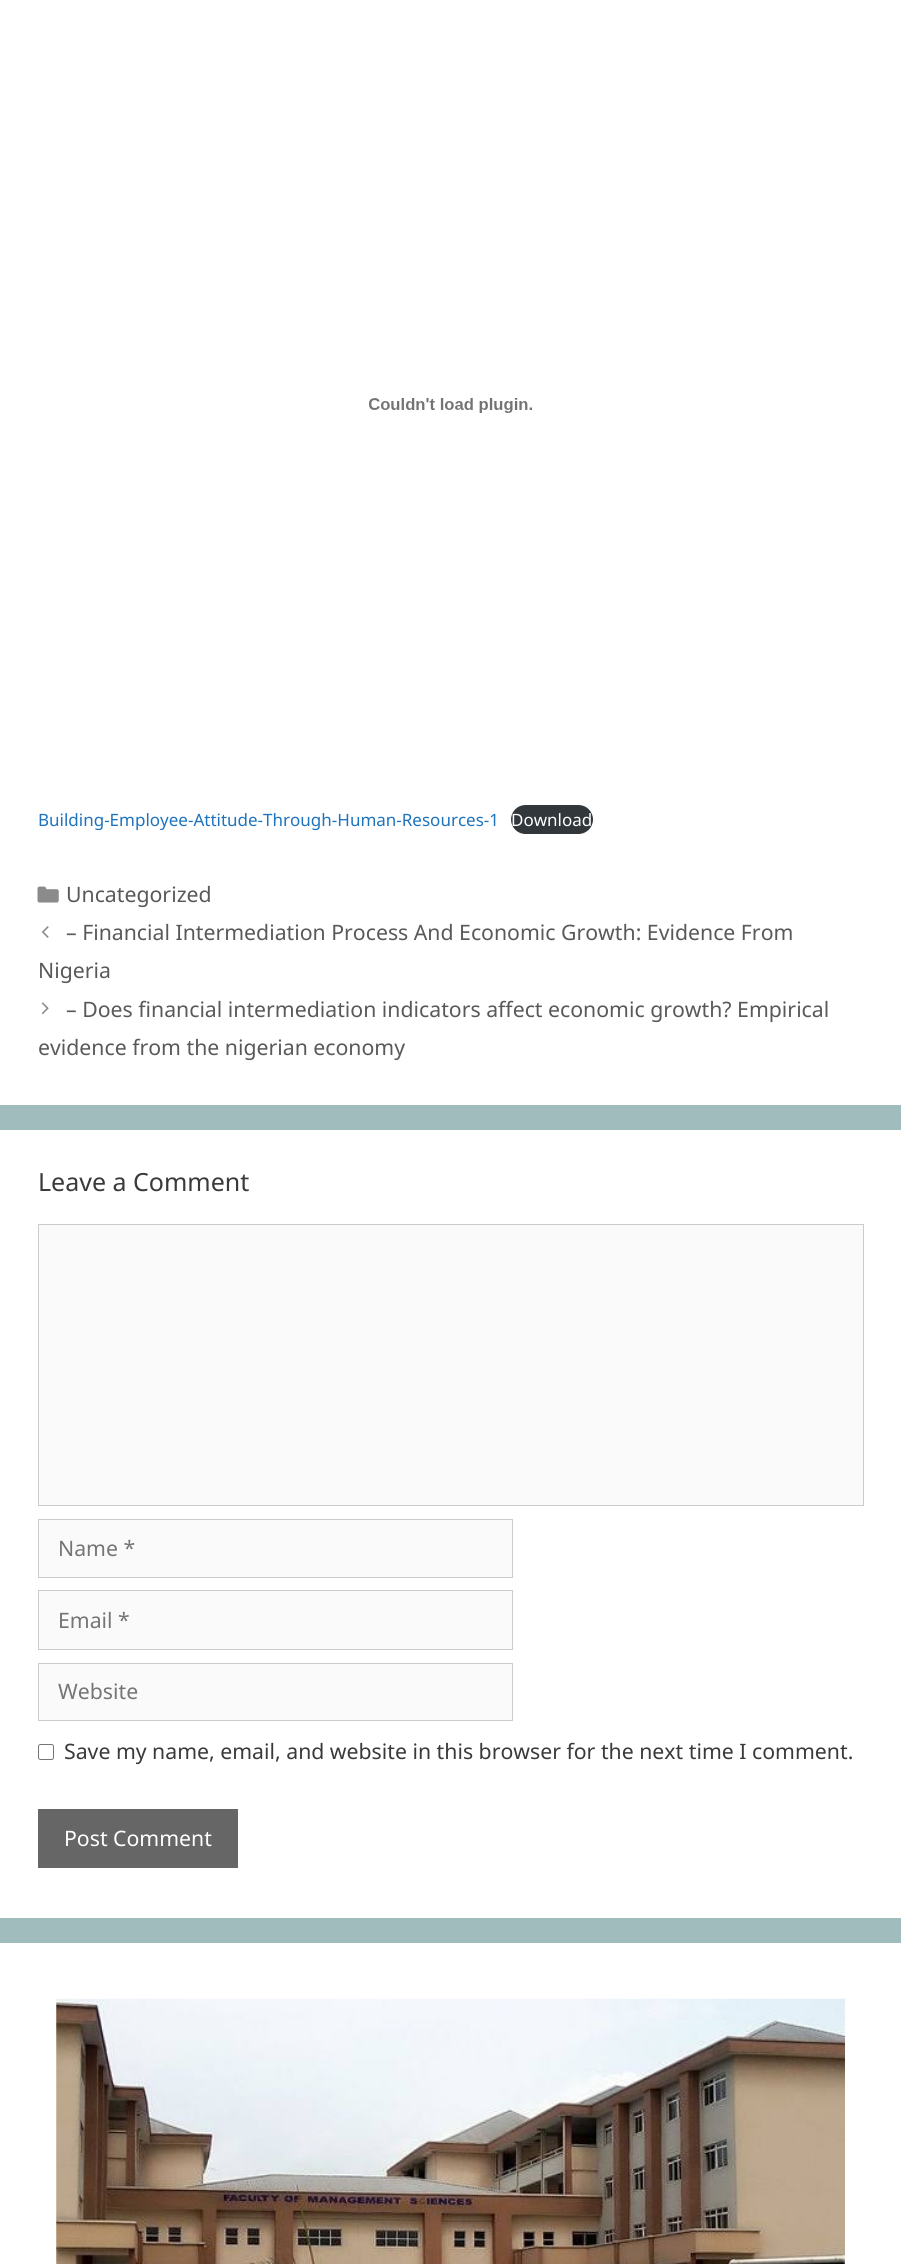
#include <cairo/cairo.h>
#include <math.h>
#include <stddef.h>

typedef struct { double x, y; const char *s; } line_t;
static cairo_t *cr;

static void rgb(unsigned color)
{
	cairo_set_source_rgb(cr, (color >> 16) / 255.0, (color >> 8 & 255) / 255.0, (color & 255) / 255.0);
}

static void rrect(double x, double y, double w, double h, double r)
{
	cairo_new_sub_path(cr);
	cairo_arc(cr, x + w - r, y + h - r, r, 0, M_PI / 2);
	cairo_arc(cr, x + r, y + h - r, r, M_PI / 2, M_PI);
	cairo_arc(cr, x + r, y + r, r, M_PI, 1.5 * M_PI);
	cairo_arc(cr, x + w - r, y + r, r, 1.5 * M_PI, 2 * M_PI);
	cairo_close_path(cr);
}

static void image(const char *path, double x, double y, double w, double h)
{
	cairo_surface_t *image = cairo_image_surface_create_from_png(path);
	cairo_save(cr);
	cairo_set_source_surface(cr, image, x, y);
	cairo_rectangle(cr, x, y, w, h);
	cairo_fill(cr);
	cairo_restore(cr);
	cairo_surface_destroy(image);
}

int main(void) {
	cairo_surface_t *surface = cairo_image_surface_create(CAIRO_FORMAT_RGB24, 901, 2264);
	cr = cairo_create(surface);
	cairo_font_options_t *options = cairo_font_options_create();
	cairo_font_options_set_hint_metrics(options, CAIRO_HINT_METRICS_OFF);
	cairo_font_options_set_hint_style(options, CAIRO_HINT_STYLE_NONE);
	cairo_set_font_options(cr, options);
	cairo_set_miter_limit(cr, 4);
	rgb(0xa0bcbc);
	cairo_paint(cr);
	rgb(0xffffff);
	cairo_rectangle(cr, 0, 0, 901, 1105);
	cairo_fill(cr);
	image("img/1.png", 369, 398, 163, 15);
	rgb(0x32373c);
	rrect(511, 805, 82, 29, 14.5);
	cairo_fill(cr);
	image("img/2.png", 37, 886, 22, 17);
	image("img/3.png", 41, 926, 8, 12);
	image("img/4.png", 41, 1002, 8, 13);
	rgb(0xffffff);
	cairo_rectangle(cr, 0, 1130, 901, 788);
	cairo_fill(cr);
	rgb(0xfafafa);
	cairo_rectangle(cr, 38.5, 1224.5, 825, 281);
	cairo_fill_preserve(cr);
	rgb(0xcccccc);
	cairo_set_line_width(cr, 1);
	cairo_stroke(cr);
	rgb(0xfafafa);
	cairo_rectangle(cr, 38.5, 1519.5, 474, 58);
	cairo_fill_preserve(cr);
	rgb(0xcccccc);
	cairo_stroke(cr);
	rgb(0xfafafa);
	cairo_rectangle(cr, 38.5, 1590.5, 474, 59);
	cairo_fill_preserve(cr);
	rgb(0xcccccc);
	cairo_stroke(cr);
	rgb(0xfafafa);
	cairo_rectangle(cr, 38.5, 1663.5, 474, 57);
	cairo_fill_preserve(cr);
	rgb(0xcccccc);
	cairo_stroke(cr);
	rrect(38.5, 1744.5, 15, 15, 2);
	rgb(0x767676);
	cairo_stroke(cr);
	rgb(0x666666);
	cairo_rectangle(cr, 38, 1809, 200, 59);
	cairo_fill(cr);
	rgb(0xffffff);
	cairo_rectangle(cr, 0, 1943, 901, 321);
	cairo_fill(cr);
	image("img/5.png", 56, 1998, 789, 266);
	cairo_select_font_face(cr, "Noto Sans", CAIRO_FONT_SLANT_NORMAL, CAIRO_FONT_WEIGHT_NORMAL);
	cairo_set_font_size(cr, 17);
	rgb(0x1e73be);
	cairo_move_to(cr, 38, 826);
	cairo_show_text(cr, "Building-Employee-Attitude-Through-Human-Resources-1");
	rgb(0xffffff);
	cairo_move_to(cr, 511, 826);
	cairo_show_text(cr, "Download");
	cairo_set_font_size(cr, 21.25);
	rgb(0x595959);
	{
		static const line_t items[] = {
			{66, 902, "Uncategorized"},
			{66, 940, "– Financial Intermediation Process And Economic Growth: Evidence From"},
			{38, 978, "Nigeria"},
			{66, 1017, "– Does financial intermediation indicators affect economic growth? Empirical"},
			{38, 1055, "evidence from the nigerian economy"},
		};
		for (size_t i = 0; i < sizeof items / sizeof *items; i++) {
			cairo_move_to(cr, items[i].x, items[i].y);
			cairo_show_text(cr, items[i].s);
		}
	}
	cairo_set_font_size(cr, 25);
	rgb(0x3a3a3a);
	cairo_move_to(cr, 38, 1191);
	cairo_show_text(cr, "Leave a Comment");
	cairo_set_font_size(cr, 21.25);
	rgb(0x757575);
	{
		static const line_t items[] = {
			{58, 1556, "Name *"},
			{58, 1628, "Email *"},
			{58, 1699, "Website"},
		};
		for (size_t i = 0; i < sizeof items / sizeof *items; i++) {
			cairo_move_to(cr, items[i].x, items[i].y);
			cairo_show_text(cr, items[i].s);
		}
	}
	rgb(0x3a3a3a);
	cairo_move_to(cr, 64, 1759);
	cairo_show_text(cr, "Save my name, email, and website in this browser for the next time I comment.");
	rgb(0xffffff);
	cairo_move_to(cr, 64, 1846);
	cairo_show_text(cr, "Post Comment");
	cairo_surface_write_to_png(surface, "page.png");
	cairo_font_options_destroy(options);
	cairo_destroy(cr);
	cairo_surface_destroy(surface);
	return 0;
}
